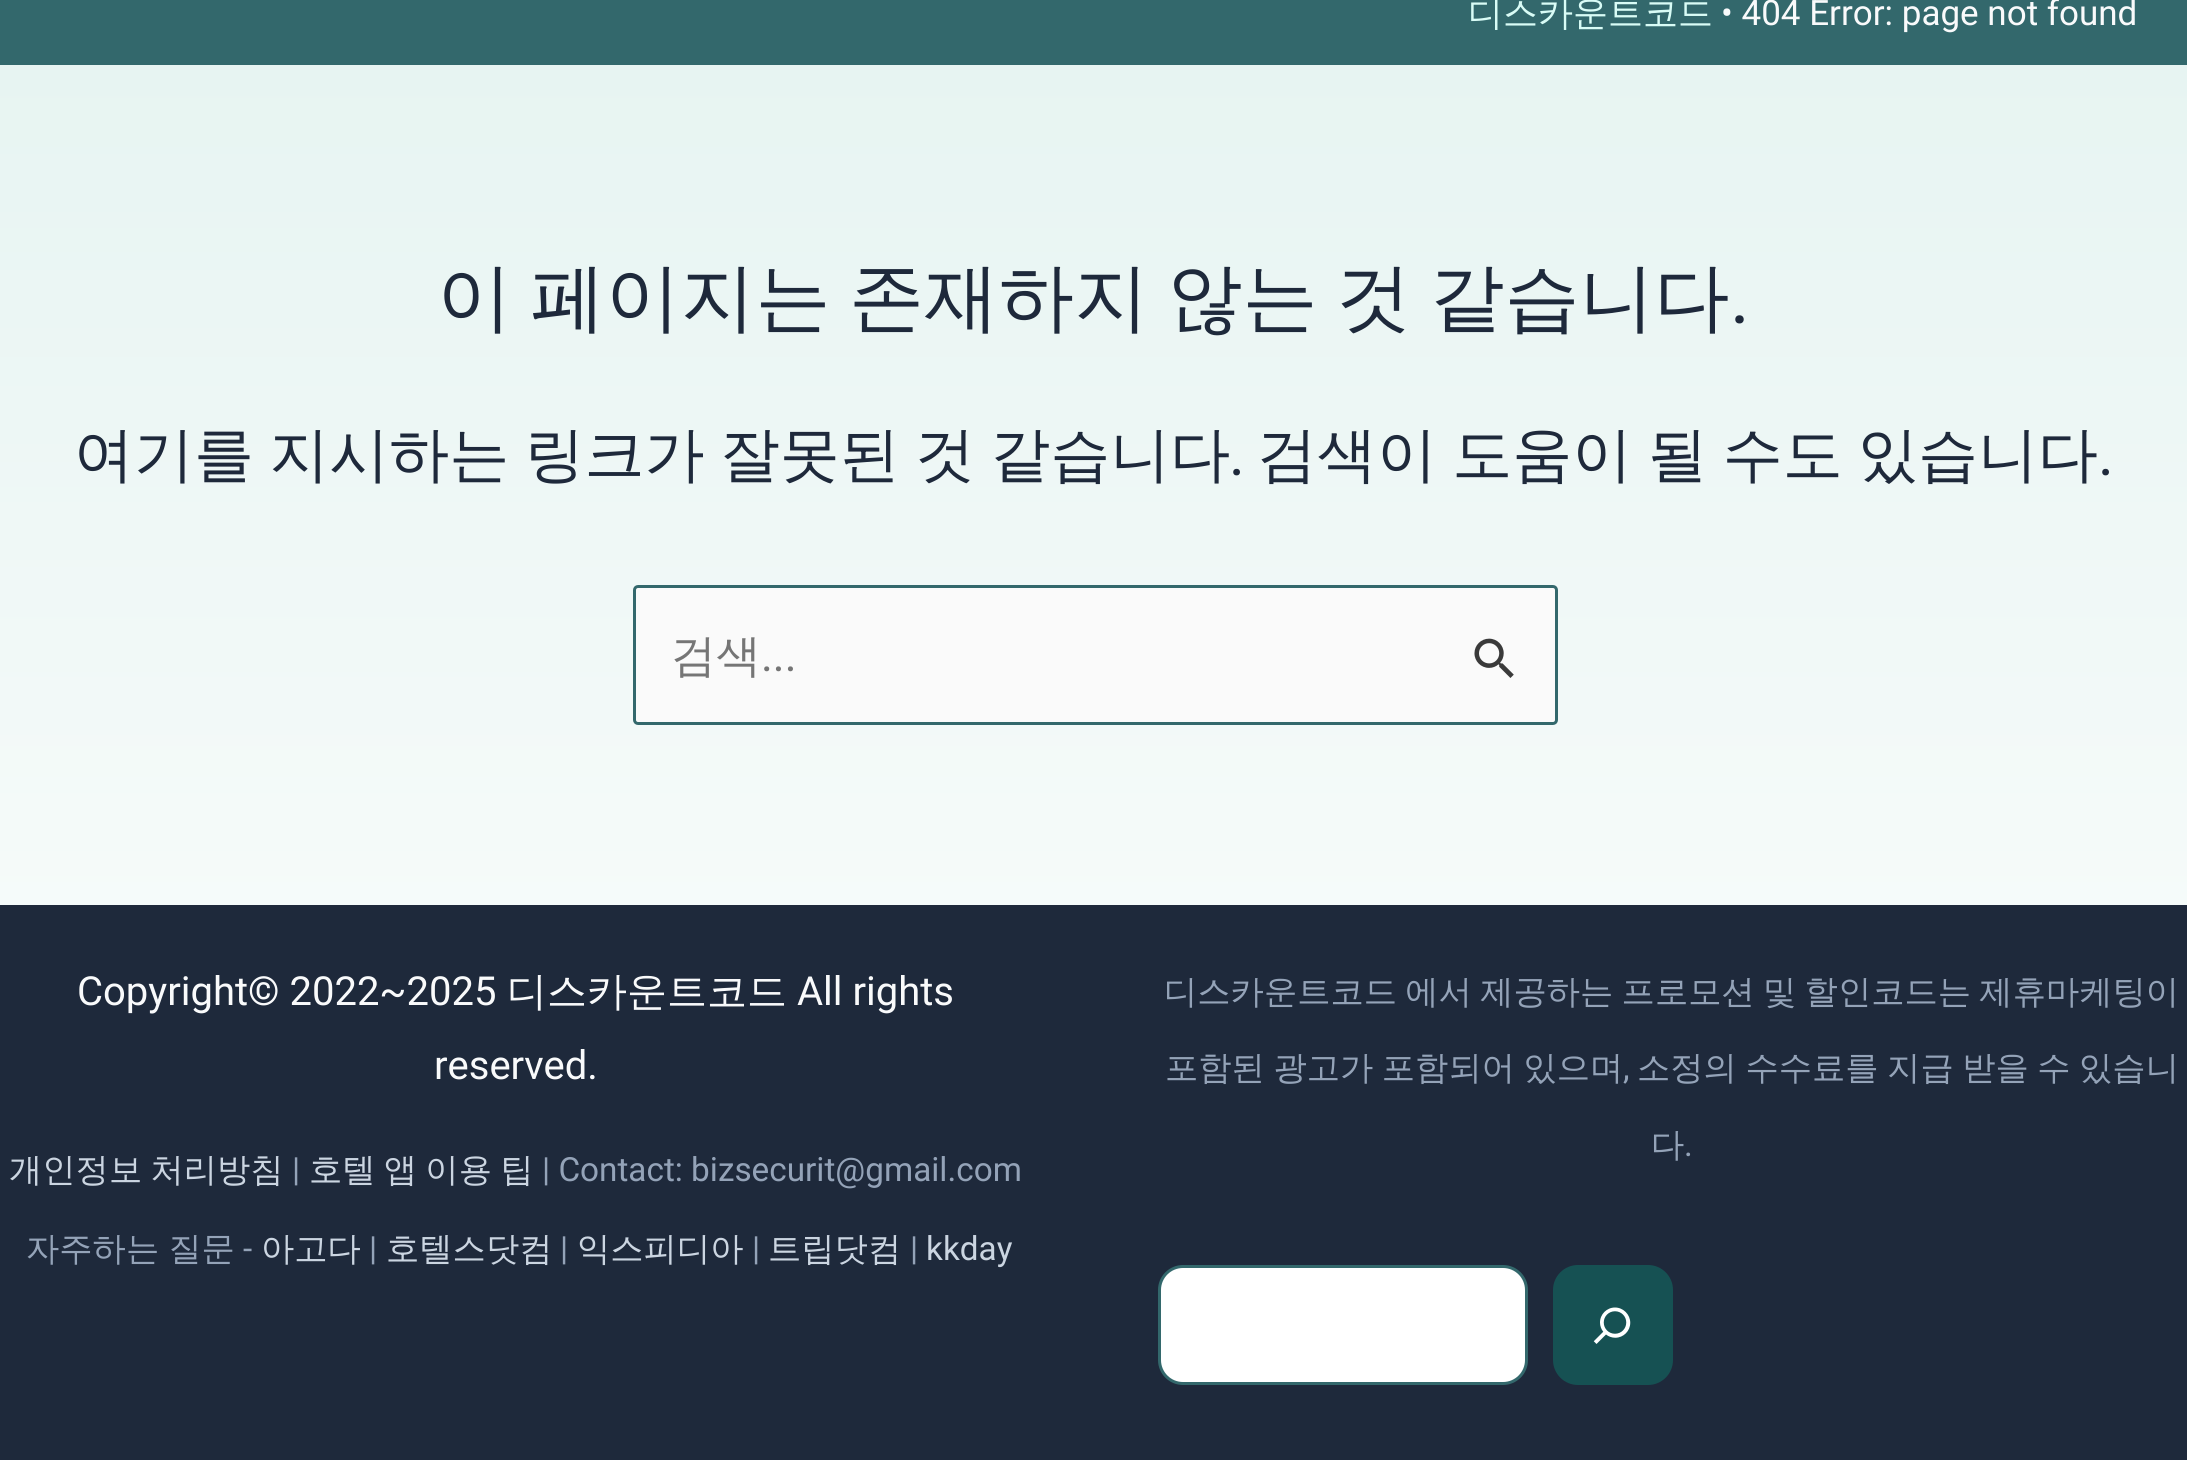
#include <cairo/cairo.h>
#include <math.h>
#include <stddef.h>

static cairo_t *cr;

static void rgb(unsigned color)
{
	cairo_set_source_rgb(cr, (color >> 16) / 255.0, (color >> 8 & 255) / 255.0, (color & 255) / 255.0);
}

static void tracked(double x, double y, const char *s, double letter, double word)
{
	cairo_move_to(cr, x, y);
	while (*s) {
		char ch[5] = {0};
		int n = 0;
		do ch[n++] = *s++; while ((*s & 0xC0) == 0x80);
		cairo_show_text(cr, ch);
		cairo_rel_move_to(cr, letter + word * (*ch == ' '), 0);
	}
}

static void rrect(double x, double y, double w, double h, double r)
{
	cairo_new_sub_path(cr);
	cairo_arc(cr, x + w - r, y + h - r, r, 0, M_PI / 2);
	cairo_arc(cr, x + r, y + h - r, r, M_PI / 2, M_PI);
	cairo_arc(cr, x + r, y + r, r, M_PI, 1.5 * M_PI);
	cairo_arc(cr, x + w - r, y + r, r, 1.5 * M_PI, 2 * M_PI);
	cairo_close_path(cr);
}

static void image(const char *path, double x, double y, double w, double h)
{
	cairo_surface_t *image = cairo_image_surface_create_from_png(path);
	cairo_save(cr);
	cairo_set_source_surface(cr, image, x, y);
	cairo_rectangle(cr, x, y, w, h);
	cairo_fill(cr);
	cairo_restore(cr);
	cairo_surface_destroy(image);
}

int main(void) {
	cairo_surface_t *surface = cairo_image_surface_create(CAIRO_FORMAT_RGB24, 2187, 1460);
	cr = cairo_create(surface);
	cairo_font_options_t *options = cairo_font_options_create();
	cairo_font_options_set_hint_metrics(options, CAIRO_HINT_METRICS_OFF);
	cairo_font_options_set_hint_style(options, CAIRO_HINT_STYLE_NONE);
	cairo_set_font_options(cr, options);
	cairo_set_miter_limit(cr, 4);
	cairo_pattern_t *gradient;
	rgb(0xffffff);
	cairo_paint(cr);
	gradient = cairo_pattern_create_linear(1094, 1460, 1094, -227);
	cairo_pattern_add_color_stop_rgba(gradient, 0, 1, 1, 1, 1);
	cairo_pattern_add_color_stop_rgba(gradient, 1, 0.886, 0.949, 0.937, 1);
	cairo_set_source(cr, gradient);
	cairo_pattern_destroy(gradient);
	cairo_rectangle(cr, 0, 65, 2187, 840);
	cairo_fill(cr);
	rgb(0x33686c);
	cairo_rectangle(cr, 0, 0, 2187, 65);
	cairo_fill(cr);
	rgb(0xfafafa);
	rrect(634.5, 586.5, 922, 137, 3.5);
	cairo_fill_preserve(cr);
	rgb(0x33686c);
	cairo_set_line_width(cr, 3);
	cairo_stroke(cr);
	image("img/1.png", 1474, 638, 40, 40);
	rgb(0x1e293b);
	cairo_rectangle(cr, 0, 905, 2187, 555);
	cairo_fill(cr);
	rgb(0xffffff);
	rrect(1159.5, 1266.5, 367, 117, 23.5);
	cairo_fill_preserve(cr);
	rgb(0x33686c);
	cairo_stroke(cr);
	rgb(0x165153);
	rrect(1553, 1265, 120, 120, 25);
	cairo_fill(cr);
	image("img/2.png", 1593, 1307, 38, 37);
	cairo_select_font_face(cr, "WenQuanYi Zen Hei Medium", CAIRO_FONT_SLANT_NORMAL, CAIRO_FONT_WEIGHT_NORMAL);
	cairo_set_font_size(cr, 35);
	rgb(0xd9fcf6);
	cairo_move_to(cr, 1468, 25);
	cairo_show_text(cr, "디스카운트코드");
	cairo_select_font_face(cr, "Roboto", CAIRO_FONT_SLANT_NORMAL, CAIRO_FONT_WEIGHT_NORMAL);
	rgb(0xf9fafb);
	cairo_move_to(cr, 1721, 25);
	cairo_show_text(cr, "• 404 Error: page not found");
	cairo_select_font_face(cr, "WenQuanYi Zen Hei Medium", CAIRO_FONT_SLANT_NORMAL, CAIRO_FONT_WEIGHT_NORMAL);
	cairo_set_font_size(cr, 75);
	rgb(0x1e293b);
	tracked(437, 323, "이 페이지는 존재하지 않는 것 같습니다", 0, -4);
	cairo_select_font_face(cr, "Roboto", CAIRO_FONT_SLANT_NORMAL, CAIRO_FONT_WEIGHT_NORMAL);
	cairo_move_to(cr, 1730, 323);
	cairo_show_text(cr, ".");
	cairo_select_font_face(cr, "WenQuanYi Zen Hei Medium", CAIRO_FONT_SLANT_NORMAL, CAIRO_FONT_WEIGHT_NORMAL);
	cairo_set_font_size(cr, 60);
	tracked(74, 475, "여기를 지시하는 링크가 잘못된 것 같습니다", 0, -2.75);
	cairo_select_font_face(cr, "Roboto", CAIRO_FONT_SLANT_NORMAL, CAIRO_FONT_WEIGHT_NORMAL);
	cairo_move_to(cr, 1229, 475);
	cairo_show_text(cr, ".");
	cairo_select_font_face(cr, "WenQuanYi Zen Hei Medium", CAIRO_FONT_SLANT_NORMAL, CAIRO_FONT_WEIGHT_NORMAL);
	tracked(1257, 475, "검색이 도움이 될 수도 있습니다", 0, -2.75);
	cairo_select_font_face(cr, "Roboto", CAIRO_FONT_SLANT_NORMAL, CAIRO_FONT_WEIGHT_NORMAL);
	cairo_move_to(cr, 2098, 475);
	cairo_show_text(cr, ".");
	cairo_select_font_face(cr, "WenQuanYi Zen Hei Medium", CAIRO_FONT_SLANT_NORMAL, CAIRO_FONT_WEIGHT_NORMAL);
	cairo_set_font_size(cr, 45);
	rgb(0x757575);
	cairo_move_to(cr, 671, 671);
	cairo_show_text(cr, "검색");
	cairo_select_font_face(cr, "Roboto", CAIRO_FONT_SLANT_NORMAL, CAIRO_FONT_WEIGHT_NORMAL);
	cairo_move_to(cr, 761, 671);
	cairo_show_text(cr, "...");
	cairo_set_font_size(cr, 40);
	rgb(0xf9fafb);
	cairo_move_to(cr, 77, 1005);
	cairo_show_text(cr, "Copyright© 2022~2025");
	cairo_select_font_face(cr, "WenQuanYi Zen Hei Medium", CAIRO_FONT_SLANT_NORMAL, CAIRO_FONT_WEIGHT_NORMAL);
	cairo_move_to(cr, 507, 1005);
	cairo_show_text(cr, "디스카운트코드");
	cairo_select_font_face(cr, "Roboto", CAIRO_FONT_SLANT_NORMAL, CAIRO_FONT_WEIGHT_NORMAL);
	cairo_move_to(cr, 797, 1005);
	cairo_show_text(cr, "All rights");
	cairo_move_to(cr, 434, 1079);
	cairo_show_text(cr, "reserved.");
	cairo_select_font_face(cr, "WenQuanYi Zen Hei Medium", CAIRO_FONT_SLANT_NORMAL, CAIRO_FONT_WEIGHT_NORMAL);
	cairo_set_font_size(cr, 33.3);
	rgb(0xcbd5e1);
	tracked(9, 1181, "개인정보 처리방침", 0, -1.75);
	cairo_select_font_face(cr, "Roboto", CAIRO_FONT_SLANT_NORMAL, CAIRO_FONT_WEIGHT_NORMAL);
	rgb(0x94a3b8);
	cairo_move_to(cr, 292, 1181);
	cairo_show_text(cr, "|");
	cairo_select_font_face(cr, "WenQuanYi Zen Hei Medium", CAIRO_FONT_SLANT_NORMAL, CAIRO_FONT_WEIGHT_NORMAL);
	rgb(0xcbd5e1);
	tracked(309, 1181, "호텔 앱 이용 팁", 0, -1.75);
	cairo_select_font_face(cr, "Roboto", CAIRO_FONT_SLANT_NORMAL, CAIRO_FONT_WEIGHT_NORMAL);
	rgb(0x94a3b8);
	cairo_move_to(cr, 542, 1181);
	cairo_show_text(cr, "| Contact: bizsecurit@gmail.com");
	cairo_select_font_face(cr, "WenQuanYi Zen Hei Medium", CAIRO_FONT_SLANT_NORMAL, CAIRO_FONT_WEIGHT_NORMAL);
	tracked(26, 1260, "자주하는 질문", 0, -1);
	cairo_select_font_face(cr, "Roboto", CAIRO_FONT_SLANT_NORMAL, CAIRO_FONT_WEIGHT_NORMAL);
	cairo_move_to(cr, 243, 1260);
	cairo_show_text(cr, "-");
	cairo_select_font_face(cr, "WenQuanYi Zen Hei Medium", CAIRO_FONT_SLANT_NORMAL, CAIRO_FONT_WEIGHT_NORMAL);
	rgb(0xcbd5e1);
	cairo_move_to(cr, 261, 1260);
	cairo_show_text(cr, "아고다");
	cairo_select_font_face(cr, "Roboto", CAIRO_FONT_SLANT_NORMAL, CAIRO_FONT_WEIGHT_NORMAL);
	rgb(0x94a3b8);
	cairo_move_to(cr, 369, 1260);
	cairo_show_text(cr, "|");
	cairo_select_font_face(cr, "WenQuanYi Zen Hei Medium", CAIRO_FONT_SLANT_NORMAL, CAIRO_FONT_WEIGHT_NORMAL);
	rgb(0xcbd5e1);
	cairo_move_to(cr, 386, 1260);
	cairo_show_text(cr, "호텔스닷컴");
	cairo_select_font_face(cr, "Roboto", CAIRO_FONT_SLANT_NORMAL, CAIRO_FONT_WEIGHT_NORMAL);
	rgb(0x94a3b8);
	cairo_move_to(cr, 560, 1260);
	cairo_show_text(cr, "|");
	cairo_select_font_face(cr, "WenQuanYi Zen Hei Medium", CAIRO_FONT_SLANT_NORMAL, CAIRO_FONT_WEIGHT_NORMAL);
	rgb(0xcbd5e1);
	cairo_move_to(cr, 577, 1260);
	cairo_show_text(cr, "익스피디아");
	cairo_select_font_face(cr, "Roboto", CAIRO_FONT_SLANT_NORMAL, CAIRO_FONT_WEIGHT_NORMAL);
	rgb(0x94a3b8);
	cairo_move_to(cr, 752, 1260);
	cairo_show_text(cr, "|");
	cairo_select_font_face(cr, "WenQuanYi Zen Hei Medium", CAIRO_FONT_SLANT_NORMAL, CAIRO_FONT_WEIGHT_NORMAL);
	rgb(0xcbd5e1);
	cairo_move_to(cr, 768, 1260);
	cairo_show_text(cr, "트립닷컴");
	cairo_select_font_face(cr, "Roboto", CAIRO_FONT_SLANT_NORMAL, CAIRO_FONT_WEIGHT_NORMAL);
	rgb(0x94a3b8);
	cairo_move_to(cr, 910, 1260);
	cairo_show_text(cr, "|");
	rgb(0xcbd5e1);
	cairo_move_to(cr, 926, 1260);
	cairo_show_text(cr, "kkday");
	cairo_select_font_face(cr, "WenQuanYi Zen Hei Medium", CAIRO_FONT_SLANT_NORMAL, CAIRO_FONT_WEIGHT_NORMAL);
	rgb(0x94a3b8);
	tracked(1164, 1003, "디스카운트코드 에서 제공하는 프로모션 및 할인코드는 제휴마케팅이", 0, -1.75);
	tracked(1165, 1079, "포함된 광고가 포함되어 있으며", 0, -1.5);
	cairo_select_font_face(cr, "Roboto", CAIRO_FONT_SLANT_NORMAL, CAIRO_FONT_WEIGHT_NORMAL);
	cairo_move_to(cr, 1623, 1079);
	cairo_show_text(cr, ",");
	cairo_select_font_face(cr, "WenQuanYi Zen Hei Medium", CAIRO_FONT_SLANT_NORMAL, CAIRO_FONT_WEIGHT_NORMAL);
	tracked(1637, 1079, "소정의 수수료를 지급 받을 수 있습니", 0, -1.5);
	cairo_move_to(cr, 1651, 1156);
	cairo_show_text(cr, "다");
	cairo_select_font_face(cr, "Roboto", CAIRO_FONT_SLANT_NORMAL, CAIRO_FONT_WEIGHT_NORMAL);
	cairo_move_to(cr, 1684, 1156);
	cairo_show_text(cr, ".");
	cairo_surface_write_to_png(surface, "page.png");
	cairo_font_options_destroy(options);
	cairo_destroy(cr);
	cairo_surface_destroy(surface);
	return 0;
}
